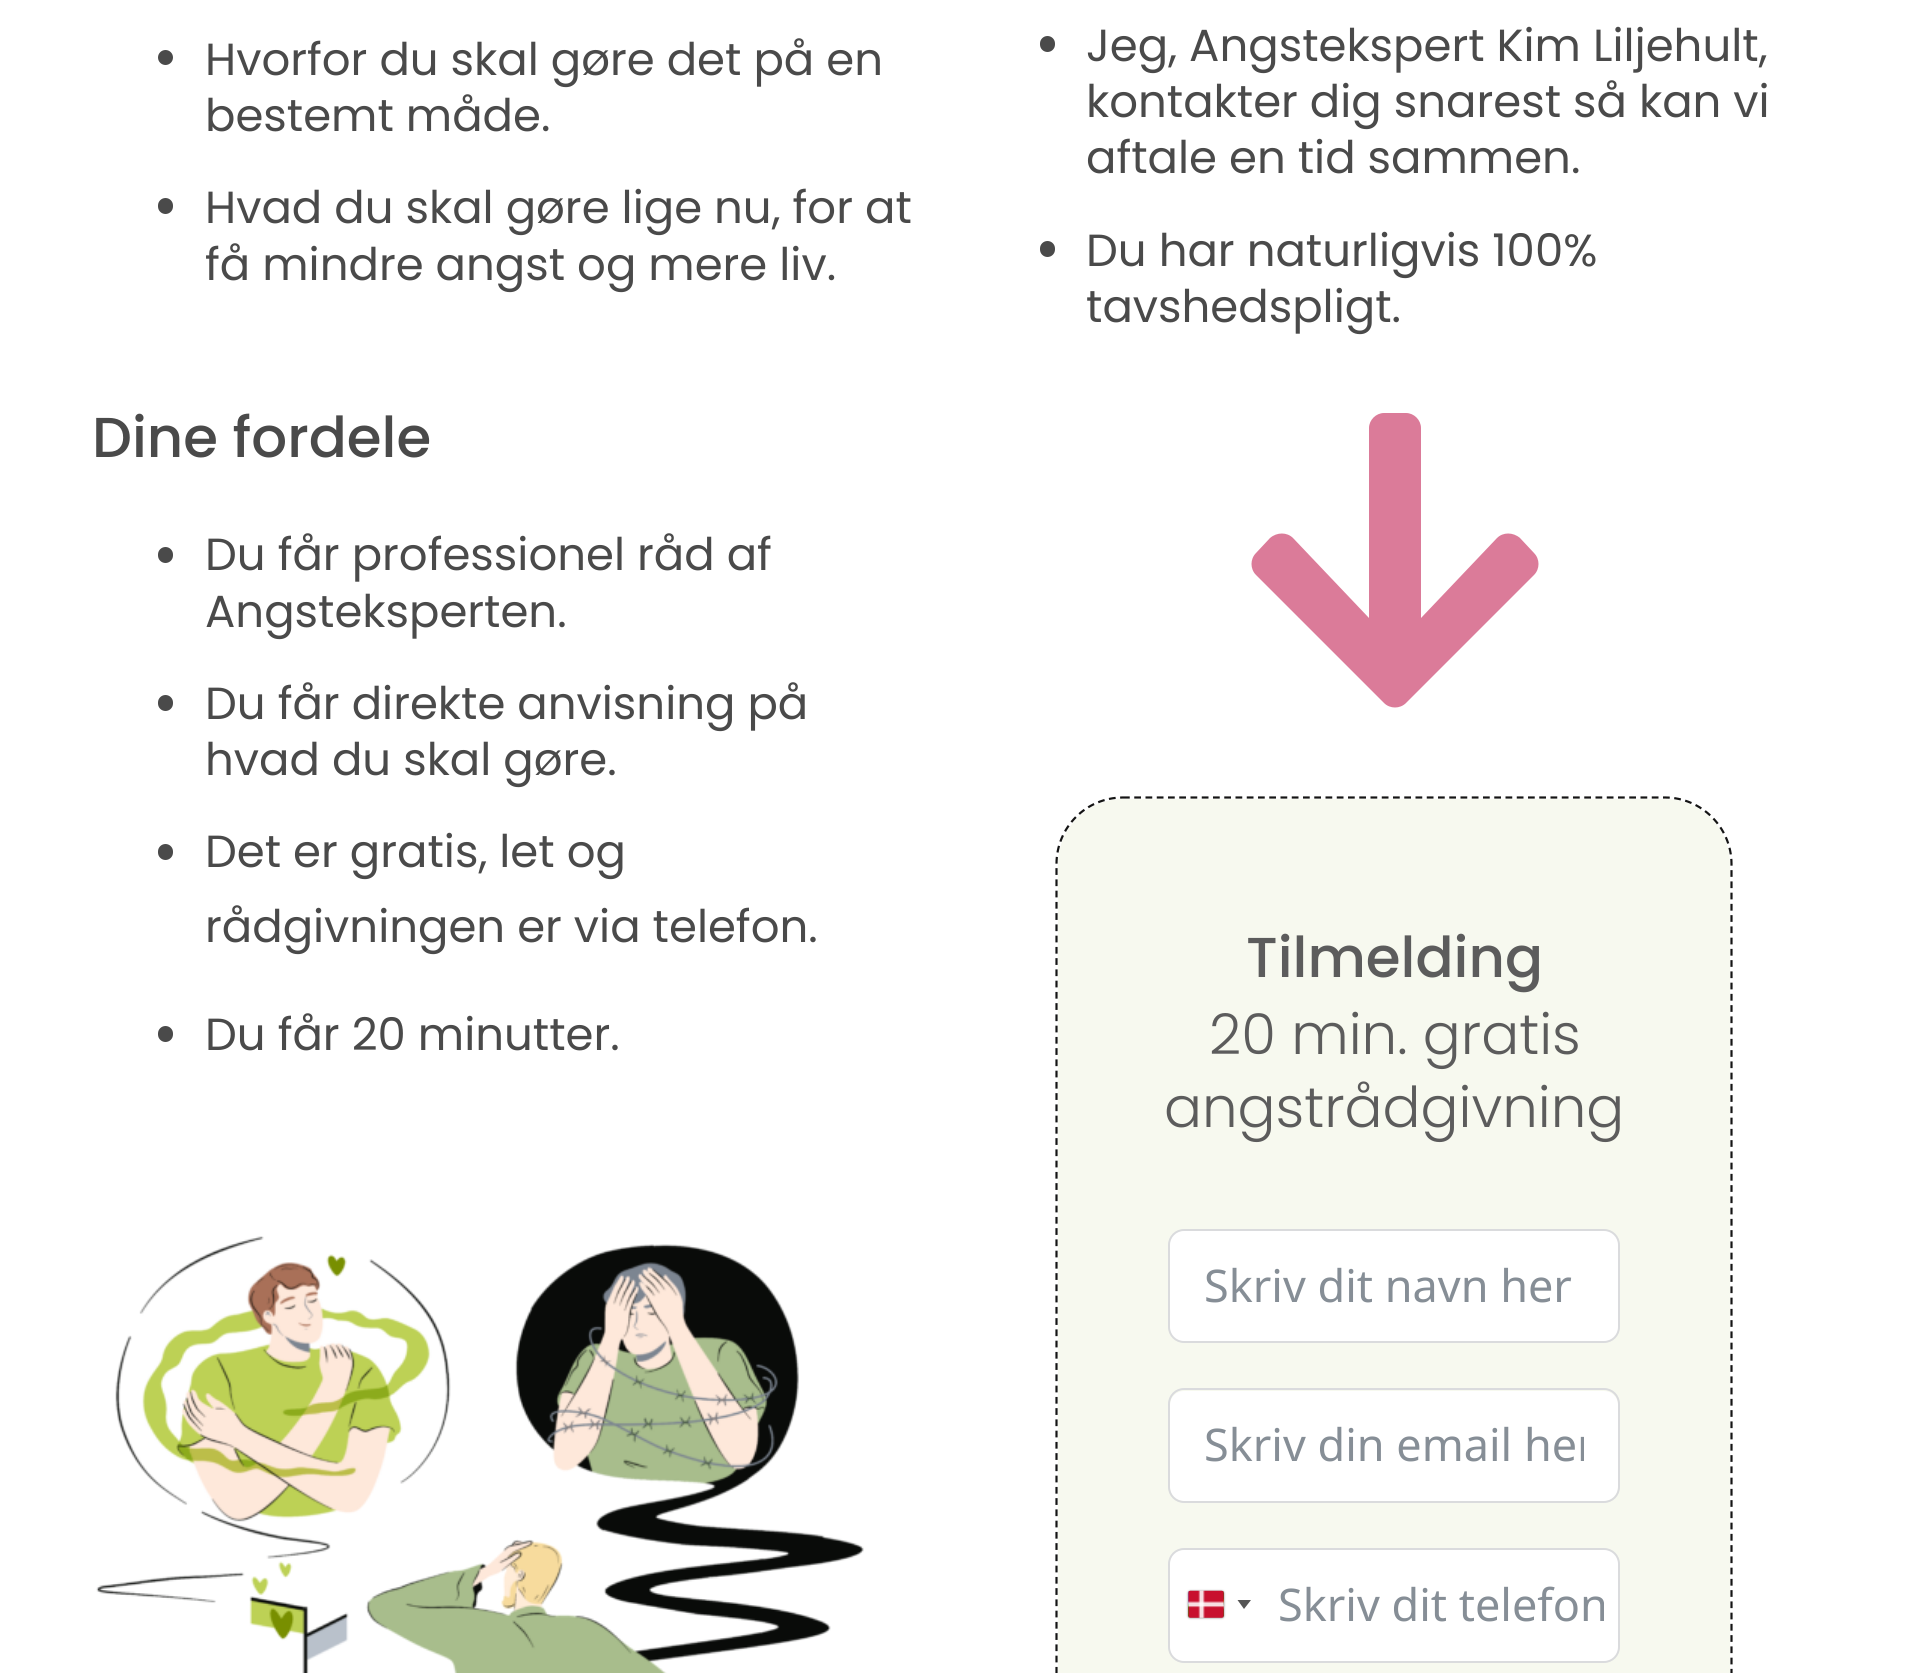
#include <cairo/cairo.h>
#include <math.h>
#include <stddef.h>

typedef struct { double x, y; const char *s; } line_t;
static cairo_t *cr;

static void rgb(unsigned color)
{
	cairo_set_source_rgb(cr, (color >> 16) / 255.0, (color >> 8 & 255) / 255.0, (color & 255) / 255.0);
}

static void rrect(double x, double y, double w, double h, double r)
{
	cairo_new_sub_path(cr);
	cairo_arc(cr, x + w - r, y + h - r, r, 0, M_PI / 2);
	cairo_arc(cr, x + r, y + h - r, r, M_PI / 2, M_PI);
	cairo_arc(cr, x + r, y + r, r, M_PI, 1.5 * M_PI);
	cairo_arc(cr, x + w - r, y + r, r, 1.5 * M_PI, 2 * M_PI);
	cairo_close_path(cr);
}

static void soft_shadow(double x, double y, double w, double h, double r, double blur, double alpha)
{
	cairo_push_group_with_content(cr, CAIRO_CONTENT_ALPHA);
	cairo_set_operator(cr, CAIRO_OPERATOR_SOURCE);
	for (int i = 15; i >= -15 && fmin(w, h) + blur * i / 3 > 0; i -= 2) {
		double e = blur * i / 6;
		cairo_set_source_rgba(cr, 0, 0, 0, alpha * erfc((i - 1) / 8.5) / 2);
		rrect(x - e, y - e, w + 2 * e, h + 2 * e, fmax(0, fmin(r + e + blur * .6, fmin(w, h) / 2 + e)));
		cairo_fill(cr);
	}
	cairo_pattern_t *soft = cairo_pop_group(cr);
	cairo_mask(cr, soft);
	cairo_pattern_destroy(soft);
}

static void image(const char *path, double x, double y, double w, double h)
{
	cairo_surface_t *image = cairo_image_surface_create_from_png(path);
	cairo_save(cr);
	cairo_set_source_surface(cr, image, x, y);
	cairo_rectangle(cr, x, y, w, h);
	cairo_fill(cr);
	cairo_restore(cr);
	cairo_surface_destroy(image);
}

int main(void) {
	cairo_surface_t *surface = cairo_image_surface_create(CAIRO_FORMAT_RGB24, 1906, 1673);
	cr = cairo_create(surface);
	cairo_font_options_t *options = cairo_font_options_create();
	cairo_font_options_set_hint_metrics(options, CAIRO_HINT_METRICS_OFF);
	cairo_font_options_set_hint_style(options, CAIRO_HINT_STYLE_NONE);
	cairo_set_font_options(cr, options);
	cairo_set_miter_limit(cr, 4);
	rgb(0xffffff);
	cairo_paint(cr);
	rgb(0x4a4a4a);
	cairo_arc(cr, 165.5, 57.5, 7.5, 0, 2 * M_PI);
	cairo_fill(cr);
	rrect(158, 198, 15, 16, 7.5);
	cairo_fill(cr);
	rrect(158, 547, 15, 16, 7.5);
	cairo_fill(cr);
	rrect(158, 695, 15, 16, 7.5);
	cairo_fill(cr);
	rrect(158, 844, 15, 16, 7.5);
	cairo_fill(cr);
	rrect(158, 1026, 15, 16, 7.5);
	cairo_fill(cr);
	image("img/1.png", 96, 1236, 768, 437);
	rrect(1040, 36, 15, 16, 7.5);
	cairo_fill(cr);
	rrect(1040, 241, 15, 16, 7.5);
	cairo_fill(cr);
	rgb(0xdb7b99);
	cairo_new_path(cr);
	cairo_move_to(cr, 1520, 538);
	cairo_line_to(cr, 1534, 553);
	cairo_curve_to(cr, 1540, 559, 1540, 569, 1534, 575);
	cairo_line_to(cr, 1406, 703);
	cairo_curve_to(cr, 1400, 709, 1390, 709, 1384, 703);
	cairo_line_to(cr, 1256, 575);
	cairo_curve_to(cr, 1250, 569, 1250, 559, 1256, 553);
	cairo_line_to(cr, 1270, 538);
	cairo_curve_to(cr, 1277, 532, 1287, 532, 1293, 538);
	cairo_line_to(cr, 1369, 618);
	cairo_line_to(cr, 1369, 428);
	cairo_curve_to(cr, 1369, 420, 1376, 413, 1384, 413);
	cairo_line_to(cr, 1406, 413);
	cairo_curve_to(cr, 1414, 413, 1421, 420, 1421, 428);
	cairo_line_to(cr, 1421, 618);
	cairo_line_to(cr, 1497, 538);
	cairo_curve_to(cr, 1503, 532, 1513, 532, 1520, 538);
	cairo_close_path(cr);
	cairo_fill(cr);
	rgb(0xf7f9ef);
	rrect(1058, 799, 672, 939, 65);
	cairo_fill(cr);
	cairo_new_path(cr);
	cairo_move_to(cr, 1123, 797.5);
	cairo_line_to(cr, 1665, 797.5);
	cairo_curve_to(cr, 1701.5, 797.5, 1731.5, 827.5, 1731.5, 864);
	cairo_line_to(cr, 1731.5, 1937);
	cairo_curve_to(cr, 1731.5, 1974, 1701.5, 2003.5, 1665, 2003.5);
	cairo_line_to(cr, 1123, 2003.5);
	cairo_curve_to(cr, 1086, 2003.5, 1056.5, 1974, 1056.5, 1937);
	cairo_line_to(cr, 1056.5, 864);
	cairo_curve_to(cr, 1056.5, 827.5, 1086, 797.5, 1123, 797.5);
	cairo_close_path(cr);
	rgb(0x141414);
	cairo_set_line_width(cr, 2.2);
	cairo_set_dash(cr, (double[]){6.75, 4.5}, 2, 0);
	cairo_stroke(cr);
	rgb(0xffffff);
	rrect(1169, 1230, 450, 112, 15);
	cairo_fill_preserve(cr);
	rgb(0xdadbdd);
	cairo_set_line_width(cr, 2);
	cairo_set_dash(cr, NULL, 0, 0);
	cairo_stroke(cr);
	rgb(0xffffff);
	rrect(1170, 1391, 448, 110, 14);
	cairo_fill(cr);
	rrect(1169, 1389, 450, 113, 15);
	rgb(0xdadbdd);
	cairo_stroke(cr);
	rgb(0xffffff);
	rrect(1169, 1549, 450, 113, 15);
	cairo_fill_preserve(cr);
	rgb(0xdadbdd);
	cairo_stroke(cr);
	rgb(0x888888);
	soft_shadow(1188, 1591, 36, 27, 2, 1, 1);
	image("img/2.png", 1188, 1590, 36, 28);
	rgb(0x555555);
	cairo_new_path(cr);
	cairo_move_to(cr, 1237.5, 1600);
	cairo_line_to(cr, 1251, 1600);
	cairo_line_to(cr, 1244, 1609);
	cairo_close_path(cr);
	cairo_fill(cr);
	cairo_select_font_face(cr, "Poppins", CAIRO_FONT_SLANT_NORMAL, CAIRO_FONT_WEIGHT_NORMAL);
	cairo_set_font_size(cr, 45);
	rgb(0x4a4a4a);
	{
		static const line_t items[] = {
			{205, 75, "Hvorfor du skal gøre det på en"},
			{205, 131, "bestemt måde."},
			{205, 223, "Hvad du skal gøre lige nu, for at"},
			{205, 280, "få mindre angst og mere liv."},
		};
		for (size_t i = 0; i < sizeof items / sizeof *items; i++) {
			cairo_move_to(cr, items[i].x, items[i].y);
			cairo_show_text(cr, items[i].s);
		}
	}
	cairo_select_font_face(cr, "Poppins Medium", CAIRO_FONT_SLANT_NORMAL, CAIRO_FONT_WEIGHT_NORMAL);
	cairo_set_font_size(cr, 56.25);
	cairo_move_to(cr, 92, 457);
	cairo_show_text(cr, "Dine fordele");
	cairo_select_font_face(cr, "Poppins", CAIRO_FONT_SLANT_NORMAL, CAIRO_FONT_WEIGHT_NORMAL);
	cairo_set_font_size(cr, 45);
	{
		static const line_t items[] = {
			{205, 570, "Du får professionel råd af"},
			{205, 627, "Angsteksperten."},
			{205, 719, "Du får direkte anvisning på"},
			{205, 775, "hvad du skal gøre."},
			{205, 867, "Det er gratis, let og"},
			{205, 942, "rådgivningen er via telefon."},
			{205, 1050, "Du får 20 minutter."},
			{1086, 61, "Jeg, Angstekspert Kim Liljehult,"},
			{1086, 117, "kontakter dig snarest så kan vi"},
			{1086, 173, "aftale en tid sammen."},
			{1086, 266, "Du har naturligvis 100%"},
			{1086, 322, "tavshedspligt."},
		};
		for (size_t i = 0; i < sizeof items / sizeof *items; i++) {
			cairo_move_to(cr, items[i].x, items[i].y);
			cairo_show_text(cr, items[i].s);
		}
	}
	cairo_select_font_face(cr, "Poppins Medium", CAIRO_FONT_SLANT_NORMAL, CAIRO_FONT_WEIGHT_NORMAL);
	cairo_set_font_size(cr, 56.25);
	rgb(0x5c5c5c);
	cairo_move_to(cr, 1246, 977);
	cairo_show_text(cr, "Tilmelding");
	cairo_select_font_face(cr, "Poppins Light", CAIRO_FONT_SLANT_NORMAL, CAIRO_FONT_WEIGHT_NORMAL);
	cairo_move_to(cr, 1209, 1054);
	cairo_show_text(cr, "20 min. gratis");
	cairo_move_to(cr, 1164, 1127);
	cairo_show_text(cr, "angstrådgivning");
	cairo_select_font_face(cr, "Noto Sans", CAIRO_FONT_SLANT_NORMAL, CAIRO_FONT_WEIGHT_NORMAL);
	cairo_set_font_size(cr, 45);
	rgb(0x868e96);
	cairo_move_to(cr, 1204, 1302);
	cairo_show_text(cr, "Skriv dit navn her");
	cairo_save(cr);
	cairo_rectangle(cr, 1204, 1415, 380, 61);
	cairo_clip(cr);
	cairo_move_to(cr, 1204, 1461);
	cairo_show_text(cr, "Skriv din email her");
	cairo_restore(cr);
	cairo_save(cr);
	cairo_rectangle(cr, 1278, 1575, 326, 61);
	cairo_clip(cr);
	cairo_move_to(cr, 1278, 1621);
	cairo_show_text(cr, "Skriv dit telefon");
	cairo_restore(cr);
	cairo_surface_write_to_png(surface, "page.png");
	cairo_font_options_destroy(options);
	cairo_destroy(cr);
	cairo_surface_destroy(surface);
	return 0;
}
